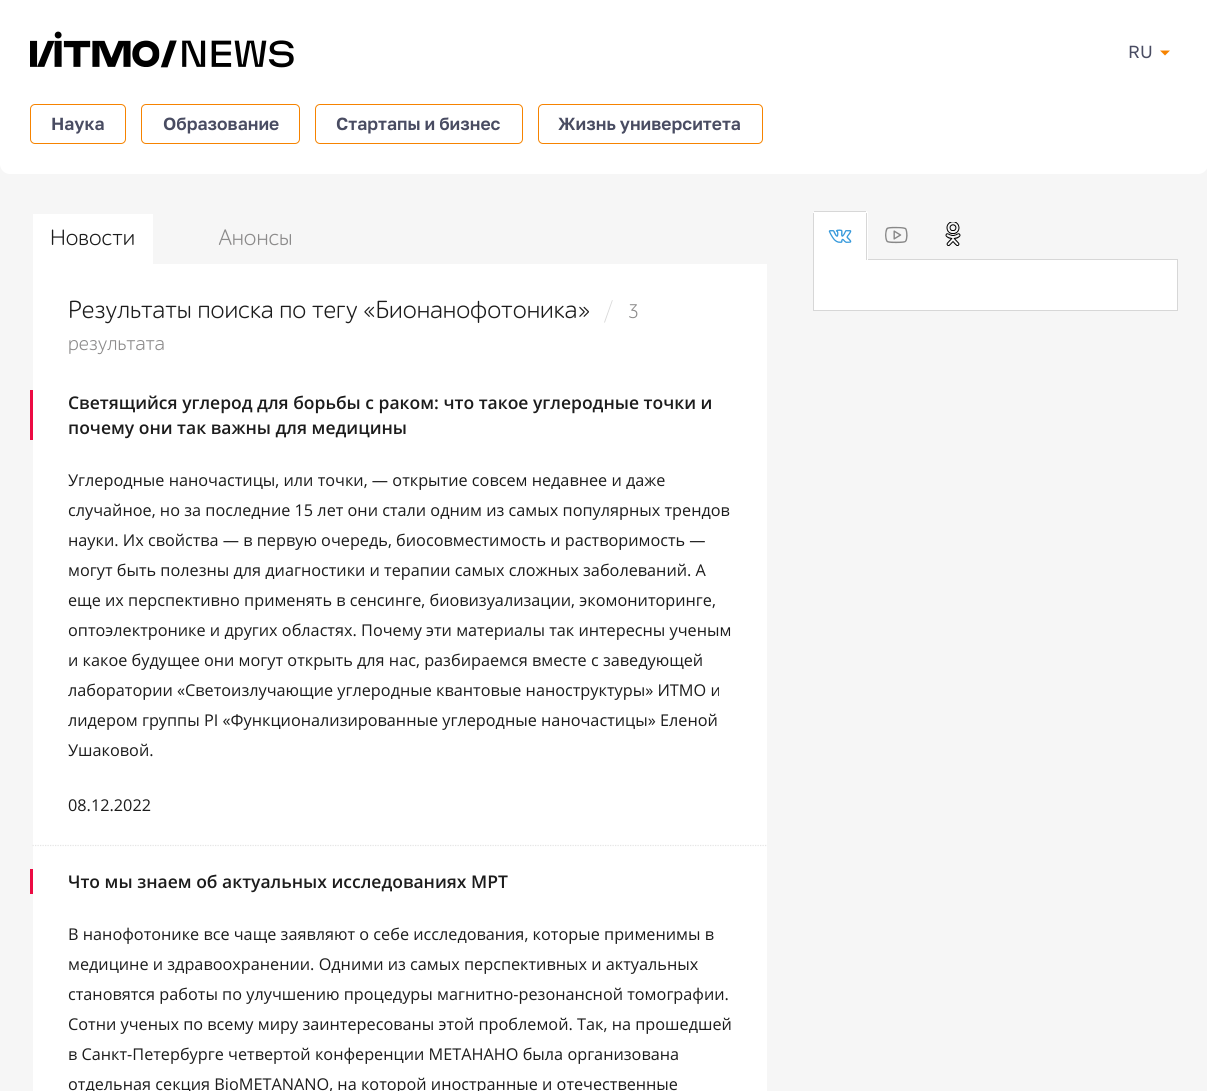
#include <cairo/cairo.h>
#include <math.h>
#include <stddef.h>

typedef struct { double x, y; const char *s; } line_t;
typedef struct { double x, y, w, h; unsigned color; } box_t;
static cairo_t *cr;

static void rgb(unsigned color)
{
	cairo_set_source_rgb(cr, (color >> 16) / 255.0, (color >> 8 & 255) / 255.0, (color & 255) / 255.0);
}

static void rrect(double x, double y, double w, double h, double r)
{
	cairo_new_sub_path(cr);
	cairo_arc(cr, x + w - r, y + h - r, r, 0, M_PI / 2);
	cairo_arc(cr, x + r, y + h - r, r, M_PI / 2, M_PI);
	cairo_arc(cr, x + r, y + r, r, M_PI, 1.5 * M_PI);
	cairo_arc(cr, x + w - r, y + r, r, 1.5 * M_PI, 2 * M_PI);
	cairo_close_path(cr);
}

static void image(const char *path, double x, double y, double w, double h)
{
	cairo_surface_t *image = cairo_image_surface_create_from_png(path);
	cairo_save(cr);
	cairo_set_source_surface(cr, image, x, y);
	cairo_rectangle(cr, x, y, w, h);
	cairo_fill(cr);
	cairo_restore(cr);
	cairo_surface_destroy(image);
}

int main(void) {
	cairo_surface_t *surface = cairo_image_surface_create(CAIRO_FORMAT_RGB24, 1207, 1091);
	cr = cairo_create(surface);
	cairo_font_options_t *options = cairo_font_options_create();
	cairo_font_options_set_hint_metrics(options, CAIRO_HINT_METRICS_OFF);
	cairo_font_options_set_hint_style(options, CAIRO_HINT_STYLE_NONE);
	cairo_set_font_options(cr, options);
	cairo_set_miter_limit(cr, 4);
	rgb(0xf6f6f6);
	cairo_paint(cr);
	rgb(0xffffff);
	cairo_rectangle(cr, 0, 0, 1207, 104);
	cairo_fill(cr);
	image("img/1.png", 30, 31, 264, 37);
	rgb(0xf68300);
	cairo_new_path(cr);
	cairo_move_to(cr, 1160, 50.5);
	cairo_line_to(cr, 1165, 55.5);
	cairo_line_to(cr, 1170, 50.5);
	cairo_close_path(cr);
	cairo_fill(cr);
	rgb(0xffffff);
	cairo_new_path(cr);
	cairo_move_to(cr, 0, 104);
	cairo_line_to(cr, 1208, 104);
	cairo_line_to(cr, 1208, 164);
	cairo_curve_to(cr, 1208, 169.5, 1203.5, 174, 1198, 174);
	cairo_line_to(cr, 10, 174);
	cairo_curve_to(cr, 4.5, 174, 0, 169.5, 0, 164);
	cairo_close_path(cr);
	cairo_fill(cr);
	rrect(30.5, 104.5, 95, 39, 4.5);
	rgb(0xf68300);
	cairo_set_line_width(cr, 1);
	cairo_stroke(cr);
	rrect(141.5, 104.5, 158, 39, 4.5);
	cairo_stroke(cr);
	rrect(315.5, 104.5, 207, 39, 4.5);
	cairo_stroke(cr);
	rrect(538.5, 104.5, 224, 39, 4.5);
	cairo_stroke(cr);
	{
		static const box_t items[] = {
			{33, 214, 120, 50, 0xffffff},
			{33, 264, 734, 827, 0xffffff},
			{30, 390, 3, 50, 0xec0b43},
		};
		for (size_t i = 0; i < sizeof items / sizeof *items; i++) {
			rgb(items[i].color);
			cairo_rectangle(cr, items[i].x, items[i].y, items[i].w, items[i].h);
			cairo_fill(cr);
		}
	}
	cairo_new_path(cr);
	cairo_move_to(cr, 32.5, 845.5);
	cairo_line_to(cr, 767.5, 845.5);
	rgb(0xe5e5e5);
	cairo_set_line_width(cr, 1.2);
	cairo_set_dash(cr, (double[]){1.25, 1.25}, 2, 0);
	cairo_stroke(cr);
	rgb(0xec0b43);
	cairo_rectangle(cr, 30, 869, 3, 25);
	cairo_fill(cr);
	rgb(0xffffff);
	cairo_rectangle(cr, 813.5, 259.5, 364, 51);
	cairo_fill_preserve(cr);
	rgb(0xd7d7d7);
	cairo_set_line_width(cr, 1);
	cairo_set_dash(cr, NULL, 0, 0);
	cairo_stroke(cr);
	rgb(0xffffff);
	cairo_new_path(cr);
	cairo_move_to(cr, 815.5, 211);
	cairo_line_to(cr, 865.5, 211);
	cairo_curve_to(cr, 867, 211, 868, 212, 868, 213.5);
	cairo_line_to(cr, 868, 260);
	cairo_line_to(cr, 813, 260);
	cairo_line_to(cr, 813, 213.5);
	cairo_curve_to(cr, 813, 212, 814, 211, 815.5, 211);
	cairo_close_path(cr);
	cairo_fill(cr);
	{
		static const box_t items[] = {
			{814, 211, 52, 1, 0xd7d7d7},
			{866, 213, 1, 47, 0xd7d7d7},
			{813, 213, 1, 47, 0xd7d7d7},
		};
		for (size_t i = 0; i < sizeof items / sizeof *items; i++) {
			rgb(items[i].color);
			cairo_rectangle(cr, items[i].x, items[i].y, items[i].w, items[i].h);
			cairo_fill(cr);
		}
	}
	image("img/2.png", 828, 229, 24, 14);
	image("img/3.png", 885, 226, 23, 18);
	image("img/4.png", 945, 222, 16, 24);
	cairo_select_font_face(cr, "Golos", CAIRO_FONT_SLANT_NORMAL, CAIRO_FONT_WEIGHT_NORMAL);
	cairo_set_font_size(cr, 17.5);
	rgb(0x494c62);
	cairo_move_to(cr, 1128, 58);
	cairo_show_text(cr, "RU");
	cairo_select_font_face(cr, "Golos SemiBold", CAIRO_FONT_SLANT_NORMAL, CAIRO_FONT_WEIGHT_NORMAL);
	{
		static const line_t items[] = {
			{51, 130, "Наука"},
			{163, 130, "Образование"},
			{336, 130, "Стартапы и бизнес"},
			{558, 130, "Жизнь университета"},
		};
		for (size_t i = 0; i < sizeof items / sizeof *items; i++) {
			cairo_move_to(cr, items[i].x, items[i].y);
			cairo_show_text(cr, items[i].s);
		}
	}
	cairo_select_font_face(cr, "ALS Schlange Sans", CAIRO_FONT_SLANT_NORMAL, CAIRO_FONT_WEIGHT_NORMAL);
	cairo_set_font_size(cr, 22.5);
	rgb(0x1c1c1c);
	cairo_move_to(cr, 50, 245);
	cairo_show_text(cr, "Новости");
	rgb(0x8c8b8b);
	cairo_move_to(cr, 218, 245);
	cairo_show_text(cr, "Анонсы");
	cairo_set_font_size(cr, 25);
	rgb(0x1c1c1c);
	cairo_move_to(cr, 68, 318);
	cairo_show_text(cr, "Результаты поиска по тегу «Бионанофотоника»");
	cairo_select_font_face(cr, "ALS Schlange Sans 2", CAIRO_FONT_SLANT_NORMAL, CAIRO_FONT_WEIGHT_NORMAL);
	rgb(0xd8d8d8);
	cairo_move_to(cr, 603, 320);
	cairo_show_text(cr, "/");
	cairo_select_font_face(cr, "ALS Schlange Sans", CAIRO_FONT_SLANT_NORMAL, CAIRO_FONT_WEIGHT_NORMAL);
	cairo_set_font_size(cr, 20);
	rgb(0x8c8b8b);
	cairo_move_to(cr, 628, 318);
	cairo_show_text(cr, "3");
	cairo_move_to(cr, 68, 350);
	cairo_show_text(cr, "результата");
	cairo_select_font_face(cr, "Open Sans SemiBold", CAIRO_FONT_SLANT_NORMAL, CAIRO_FONT_WEIGHT_NORMAL);
	cairo_set_font_size(cr, 17.5);
	rgb(0x1c1c1c);
	cairo_move_to(cr, 68, 409);
	cairo_show_text(cr, "Светящийся углерод для борьбы с раком: что такое углеродные точки и");
	cairo_move_to(cr, 68, 434);
	cairo_show_text(cr, "почему они так важны для медицины");
	cairo_select_font_face(cr, "Open Sans", CAIRO_FONT_SLANT_NORMAL, CAIRO_FONT_WEIGHT_NORMAL);
	cairo_set_font_size(cr, 16.25);
	{
		static const line_t items[] = {
			{68, 486, "Углеродные наночастицы, или точки, — открытие совсем недавнее и даже"},
			{68, 516, "случайное, но за последние 15 лет они стали одним из самых популярных трендов"},
			{68, 546, "науки. Их свойства ― в первую очередь, биосовместимость и растворимость ―"},
			{68, 576, "могут быть полезны для диагностики и терапии самых сложных заболеваний. А"},
			{68, 606, "еще их перспективно применять в сенсинге, биовизуализации, экомониторинге,"},
			{68, 636, "оптоэлектронике и других областях. Почему эти материалы так интересны ученым"},
			{68, 666, "и какое будущее они могут открыть для нас, разбираемся вместе с заведующей"},
			{68, 696, "лаборатории «Светоизлучающие углеродные квантовые наноструктуры» ИТМО и"},
			{68, 726, "лидером группы PI «Функционализированные углеродные наночастицы» Еленой"},
			{68, 756, "Ушаковой."},
			{68, 811, "08.12.2022"},
		};
		for (size_t i = 0; i < sizeof items / sizeof *items; i++) {
			cairo_move_to(cr, items[i].x, items[i].y);
			cairo_show_text(cr, items[i].s);
		}
	}
	cairo_select_font_face(cr, "Open Sans SemiBold", CAIRO_FONT_SLANT_NORMAL, CAIRO_FONT_WEIGHT_NORMAL);
	cairo_set_font_size(cr, 17.5);
	cairo_move_to(cr, 68, 888);
	cairo_show_text(cr, "Что мы знаем об актуальных исследованиях МРТ");
	cairo_select_font_face(cr, "Open Sans", CAIRO_FONT_SLANT_NORMAL, CAIRO_FONT_WEIGHT_NORMAL);
	cairo_set_font_size(cr, 16.25);
	{
		static const line_t items[] = {
			{68, 940, "В нанофотонике все чаще заявляют о себе исследования, которые применимы в"},
			{68, 970, "медицине и здравоохранении. Одними из самых перспективных и актуальных"},
			{68, 1000, "становятся работы по улучшению процедуры магнитно-резонансной томографии."},
			{68, 1030, "Сотни ученых по всему миру заинтересованы этой проблемой. Так, на прошедшей"},
			{68, 1060, "в Санкт-Петербурге четвертой конференции МЕТАНАНО была организована"},
			{68, 1090, "отдельная секция BioMETANANO, на которой иностранные и отечественные"},
		};
		for (size_t i = 0; i < sizeof items / sizeof *items; i++) {
			cairo_move_to(cr, items[i].x, items[i].y);
			cairo_show_text(cr, items[i].s);
		}
	}
	cairo_surface_write_to_png(surface, "page.png");
	cairo_font_options_destroy(options);
	cairo_destroy(cr);
	cairo_surface_destroy(surface);
	return 0;
}
